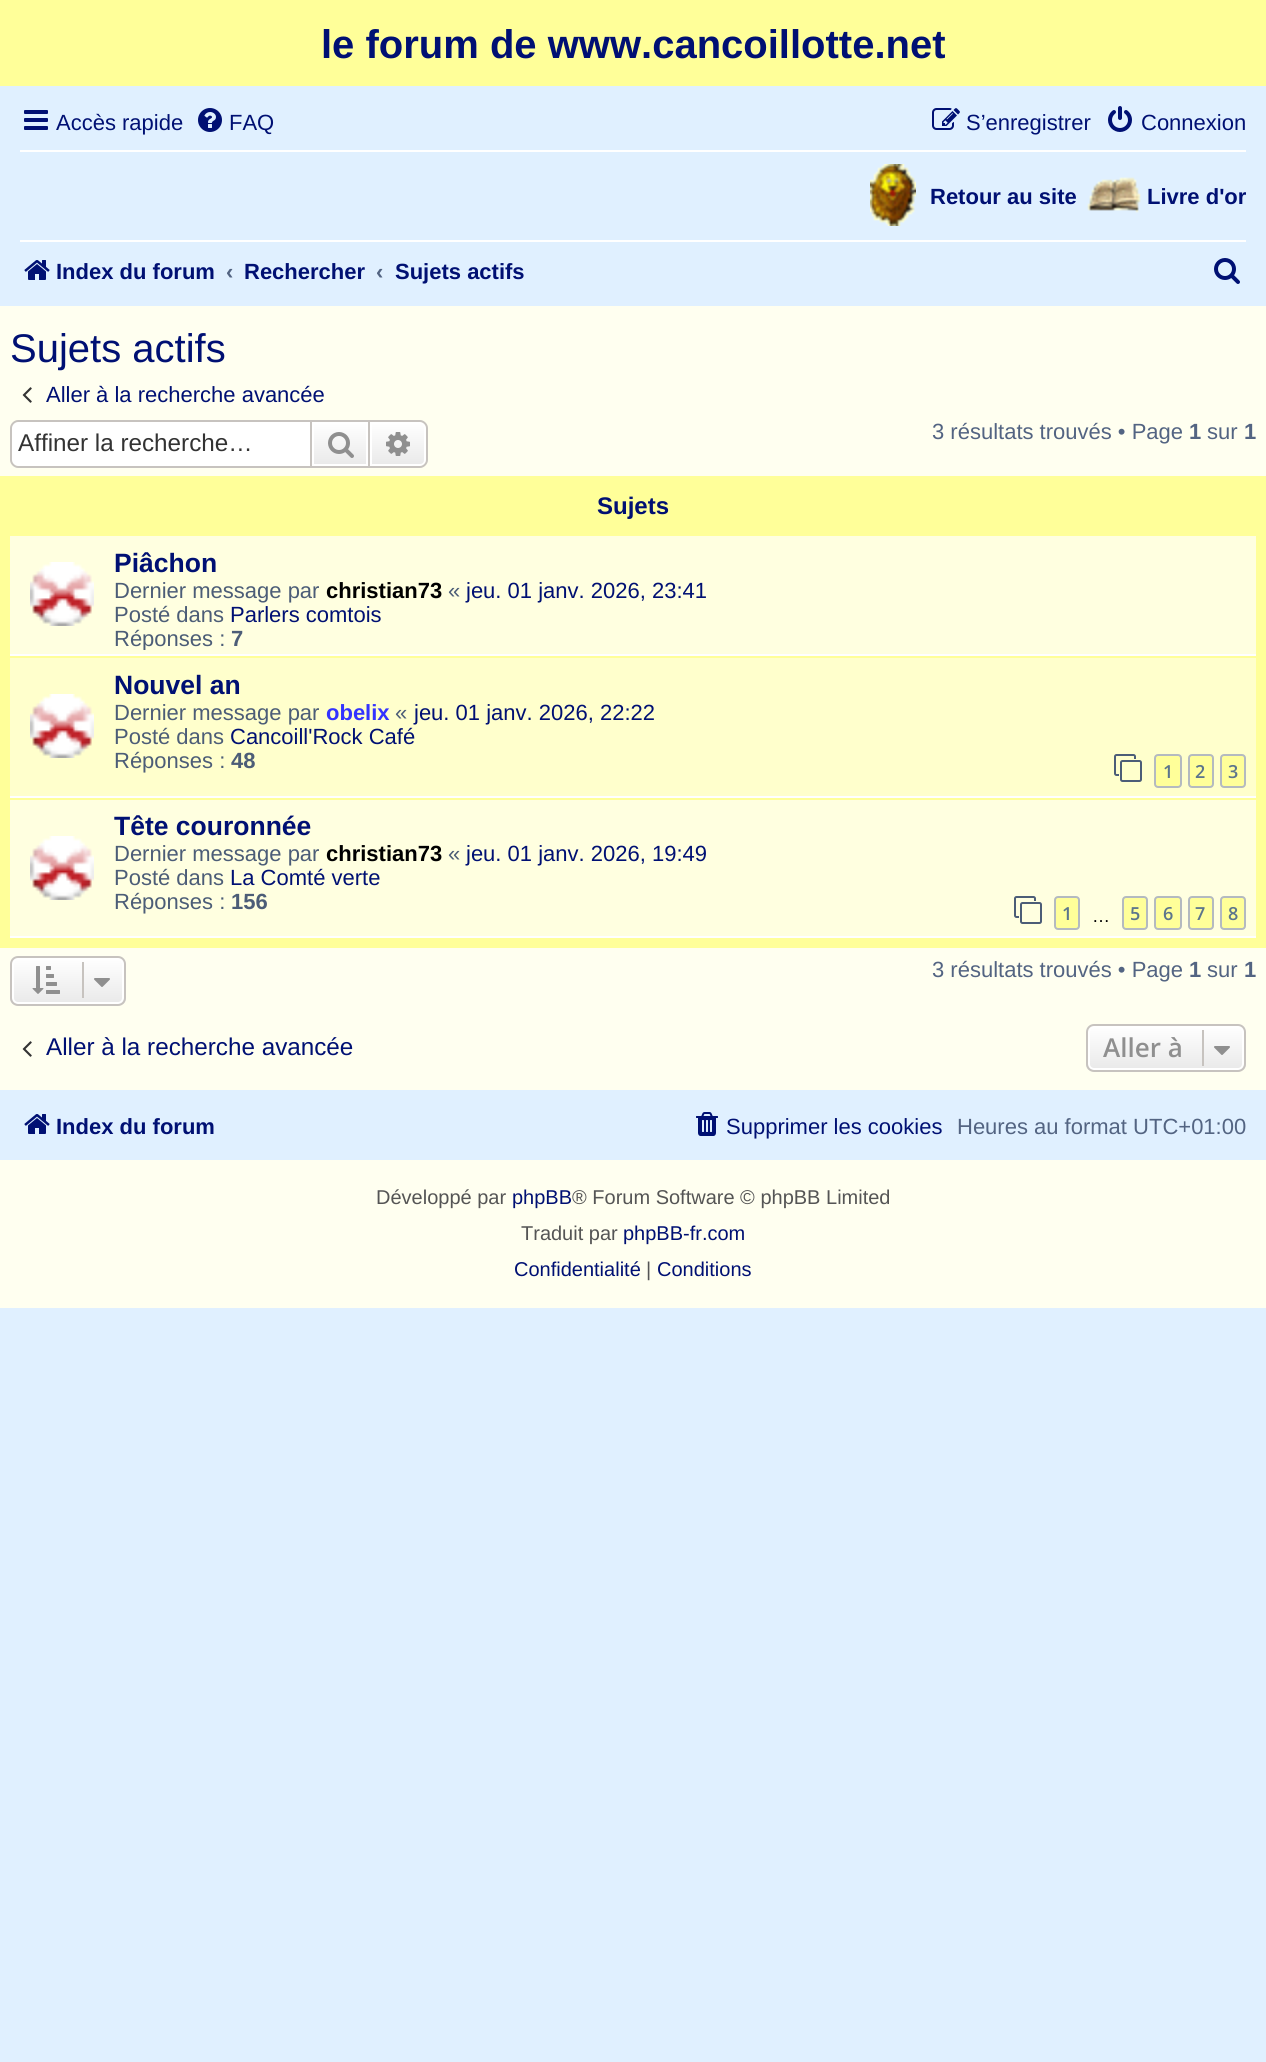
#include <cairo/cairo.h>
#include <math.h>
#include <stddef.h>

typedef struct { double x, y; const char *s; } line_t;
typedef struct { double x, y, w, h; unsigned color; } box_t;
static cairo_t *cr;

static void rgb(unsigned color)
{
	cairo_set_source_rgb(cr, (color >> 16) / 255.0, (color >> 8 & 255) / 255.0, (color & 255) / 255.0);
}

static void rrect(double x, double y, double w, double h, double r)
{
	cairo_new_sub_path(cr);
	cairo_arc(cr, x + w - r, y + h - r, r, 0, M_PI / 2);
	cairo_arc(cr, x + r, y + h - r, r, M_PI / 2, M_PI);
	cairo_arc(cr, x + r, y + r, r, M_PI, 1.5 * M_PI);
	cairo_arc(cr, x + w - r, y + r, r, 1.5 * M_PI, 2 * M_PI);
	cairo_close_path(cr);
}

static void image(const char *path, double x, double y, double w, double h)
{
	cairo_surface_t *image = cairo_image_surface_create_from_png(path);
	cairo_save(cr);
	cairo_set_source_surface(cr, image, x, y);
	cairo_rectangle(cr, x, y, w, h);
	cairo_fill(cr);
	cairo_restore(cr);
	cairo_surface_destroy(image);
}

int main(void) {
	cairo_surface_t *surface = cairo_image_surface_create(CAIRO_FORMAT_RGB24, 1266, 2062);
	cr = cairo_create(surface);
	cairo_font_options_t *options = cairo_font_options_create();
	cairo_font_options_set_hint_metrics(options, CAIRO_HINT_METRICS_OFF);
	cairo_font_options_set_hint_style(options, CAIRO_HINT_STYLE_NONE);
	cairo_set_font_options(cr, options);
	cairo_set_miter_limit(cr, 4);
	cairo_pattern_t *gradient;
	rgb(0xe0f0ff);
	cairo_paint(cr);
	rgb(0xfffff0);
	cairo_rectangle(cr, 0, 306, 1266, 1002);
	cairo_fill(cr);
	rgb(0xffff99);
	cairo_rectangle(cr, 0, 0, 1266, 86);
	cairo_fill(cr);
	image("img/1.png", 24, 110, 24, 20);
	image("img/2.png", 198, 108, 24, 24);
	image("img/3.png", 932, 108, 28, 22);
	image("img/4.png", 1108, 106, 24, 26);
	rgb(0xffffff);
	cairo_rectangle(cr, 20, 150, 1226, 2);
	cairo_fill(cr);
	image("img/5.png", 870, 164, 46, 62);
	image("img/6.png", 1087, 177, 54, 36);
	cairo_rectangle(cr, 20, 240, 1226, 2);
	cairo_fill(cr);
	image("img/7.png", 24, 260, 26, 20);
	image("img/8.png", 1214, 258, 26, 26);
	image("img/9.png", 22, 387, 10, 16);
	cairo_new_path(cr);
	cairo_move_to(cr, 18, 422);
	cairo_line_to(cr, 310, 422);
	cairo_line_to(cr, 310, 466);
	cairo_line_to(cr, 18, 466);
	cairo_curve_to(cr, 14.5, 466, 12, 463.5, 12, 460);
	cairo_line_to(cr, 12, 428);
	cairo_curve_to(cr, 12, 424.5, 14.5, 422, 18, 422);
	cairo_close_path(cr);
	cairo_fill(cr);
	rgb(0xc7c3bf);
	cairo_set_fill_rule(cr, CAIRO_FILL_RULE_EVEN_ODD);
	cairo_new_path(cr);
	cairo_move_to(cr, 18, 420);
	cairo_line_to(cr, 310, 420);
	cairo_line_to(cr, 310, 468);
	cairo_line_to(cr, 18, 468);
	cairo_curve_to(cr, 14, 468, 10, 464, 10, 460);
	cairo_line_to(cr, 10, 428);
	cairo_curve_to(cr, 10, 424, 14, 420, 18, 420);
	cairo_close_path(cr);
	cairo_move_to(cr, 18, 422);
	cairo_line_to(cr, 310, 422);
	cairo_line_to(cr, 310, 466);
	cairo_line_to(cr, 18, 466);
	cairo_curve_to(cr, 15, 466, 12, 463, 12, 460);
	cairo_line_to(cr, 12, 428);
	cairo_curve_to(cr, 12, 425, 15, 422, 18, 422);
	cairo_close_path(cr);
	cairo_fill(cr);
	gradient = cairo_pattern_create_linear(340, 422, 340, 466);
	cairo_pattern_add_color_stop_rgba(gradient, 0, 1, 1, 1, 1);
	cairo_pattern_add_color_stop_rgba(gradient, 1, 0.914, 0.914, 0.914, 1);
	cairo_set_source(cr, gradient);
	cairo_pattern_destroy(gradient);
	cairo_rectangle(cr, 314, 424, 52, 40);
	cairo_fill(cr);
	cairo_rectangle(cr, 313, 423, 54, 42);
	rgb(0xffffff);
	cairo_stroke(cr);
	cairo_rectangle(cr, 311, 421, 58, 46);
	rgb(0xc7c3bf);
	cairo_stroke(cr);
	image("img/10.png", 328, 432, 26, 26);
	gradient = cairo_pattern_create_linear(398, 422, 398, 466);
	cairo_pattern_add_color_stop_rgba(gradient, 0, 1, 1, 1, 1);
	cairo_pattern_add_color_stop_rgba(gradient, 1, 0.914, 0.914, 0.914, 1);
	cairo_set_source(cr, gradient);
	cairo_pattern_destroy(gradient);
	cairo_new_path(cr);
	cairo_move_to(cr, 371, 423);
	cairo_line_to(cr, 420, 423);
	cairo_curve_to(cr, 423, 423, 425, 425, 425, 428);
	cairo_line_to(cr, 425, 460);
	cairo_curve_to(cr, 425, 463, 423, 465, 420, 465);
	cairo_line_to(cr, 371, 465);
	cairo_close_path(cr);
	cairo_fill_preserve(cr);
	rgb(0xffffff);
	cairo_stroke(cr);
	rgb(0xc7c3bf);
	cairo_new_path(cr);
	cairo_move_to(cr, 370, 420);
	cairo_line_to(cr, 420, 420);
	cairo_curve_to(cr, 424, 420, 428, 424, 428, 428);
	cairo_line_to(cr, 428, 460);
	cairo_curve_to(cr, 428, 464, 424, 468, 420, 468);
	cairo_line_to(cr, 370, 468);
	cairo_close_path(cr);
	cairo_move_to(cr, 370, 422);
	cairo_line_to(cr, 420, 422);
	cairo_curve_to(cr, 423, 422, 426, 425, 426, 428);
	cairo_line_to(cr, 426, 460);
	cairo_curve_to(cr, 426, 463, 423, 466, 420, 466);
	cairo_line_to(cr, 370, 466);
	cairo_close_path(cr);
	cairo_fill(cr);
	image("img/11.png", 386, 432, 24, 24);
	{
		static const box_t items[] = {
			{0, 476, 1266, 472, 0xffff99},
			{10, 536, 1246, 118, 0xffffe0},
			{10, 654, 1246, 2, 0xffffff},
		};
		for (size_t i = 0; i < sizeof items / sizeof *items; i++) {
			rgb(items[i].color);
			cairo_rectangle(cr, items[i].x, items[i].y, items[i].w, items[i].h);
			cairo_fill(cr);
		}
	}
	image("img/12.png", 30, 562, 64, 64);
	rgb(0xffffcc);
	cairo_rectangle(cr, 10, 658, 1246, 138);
	cairo_fill(cr);
	rgb(0xffffff);
	cairo_rectangle(cr, 10, 796, 1246, 2);
	cairo_fill(cr);
	image("img/13.png", 30, 694, 64, 64);
	image("img/14.png", 1114, 754, 28, 28);
	rgb(0xffff99);
	rrect(1155, 755, 26, 32, 3);
	cairo_fill_preserve(cr);
	rgb(0xb4bac0);
	cairo_stroke(cr);
	rgb(0xffff99);
	rrect(1189, 755, 24, 32, 3);
	cairo_fill_preserve(cr);
	rgb(0xb4bac0);
	cairo_stroke(cr);
	rgb(0xffff99);
	rrect(1221, 755, 24, 32, 3);
	cairo_fill_preserve(cr);
	rgb(0xb4bac0);
	cairo_stroke(cr);
	rgb(0xffffe0);
	cairo_rectangle(cr, 10, 800, 1246, 136);
	cairo_fill(cr);
	rgb(0xffffff);
	cairo_rectangle(cr, 10, 936, 1246, 2);
	cairo_fill(cr);
	image("img/12.png", 30, 836, 64, 64);
	image("img/15.png", 1014, 896, 28, 28);
	rgb(0xffff99);
	rrect(1055, 897, 24, 32, 3);
	cairo_fill_preserve(cr);
	rgb(0xb4bac0);
	cairo_stroke(cr);
	rgb(0xffff99);
	rrect(1123, 897, 24, 32, 3);
	cairo_fill_preserve(cr);
	rgb(0xb4bac0);
	cairo_stroke(cr);
	rgb(0xffff99);
	rrect(1155, 897, 26, 32, 3);
	cairo_fill_preserve(cr);
	rgb(0xb4bac0);
	cairo_stroke(cr);
	rgb(0xffff99);
	rrect(1189, 897, 24, 32, 3);
	cairo_fill_preserve(cr);
	rgb(0xb4bac0);
	cairo_stroke(cr);
	rgb(0xffff99);
	rrect(1221, 897, 24, 32, 3);
	cairo_fill_preserve(cr);
	rgb(0xb4bac0);
	cairo_stroke(cr);
	cairo_save(cr);
	cairo_set_fill_rule(cr, CAIRO_FILL_RULE_WINDING);
	rrect(10, 956, 116, 50, 8);
	cairo_clip(cr);
	gradient = cairo_pattern_create_linear(68, 958, 68, 1004);
	cairo_pattern_add_color_stop_rgba(gradient, 0, 1, 1, 1, 1);
	cairo_pattern_add_color_stop_rgba(gradient, 1, 0.914, 0.914, 0.914, 1);
	cairo_set_source(cr, gradient);
	cairo_pattern_destroy(gradient);
	cairo_rectangle(cr, 10, 958, 116, 46);
	cairo_fill(cr);
	cairo_restore(cr);
	rrect(13, 959, 110, 44, 5);
	rgb(0xffffff);
	cairo_stroke(cr);
	rrect(11, 957, 114, 48, 7);
	rgb(0xc7c3bf);
	cairo_stroke(cr);
	image("img/16.png", 32, 966, 28, 28);
	cairo_rectangle(cr, 82, 962, 2, 36);
	cairo_fill(cr);
	image("img/17.png", 94, 978, 16, 9);
	image("img/9.png", 22, 1041, 10, 16);
	cairo_save(cr);
	cairo_set_fill_rule(cr, CAIRO_FILL_RULE_WINDING);
	rrect(1086, 1024, 160, 48, 8);
	cairo_clip(cr);
	gradient = cairo_pattern_create_linear(1166, 1026, 1166, 1070);
	cairo_pattern_add_color_stop_rgba(gradient, 0, 1, 1, 1, 1);
	cairo_pattern_add_color_stop_rgba(gradient, 1, 0.914, 0.914, 0.914, 1);
	cairo_set_source(cr, gradient);
	cairo_pattern_destroy(gradient);
	cairo_rectangle(cr, 1086, 1026, 160, 44);
	cairo_fill(cr);
	cairo_restore(cr);
	rrect(1089, 1027, 154, 42, 5);
	rgb(0xffffff);
	cairo_stroke(cr);
	rrect(1087, 1025, 158, 46, 7);
	rgb(0xc7c3bf);
	cairo_stroke(cr);
	cairo_rectangle(cr, 1202, 1030, 2, 36);
	cairo_fill(cr);
	image("img/18.png", 1214, 1046, 16, 9);
	rgb(0xe0f0ff);
	cairo_rectangle(cr, 0, 1090, 1266, 70);
	cairo_fill(cr);
	image("img/7.png", 24, 1114, 26, 20);
	image("img/19.png", 696, 1112, 22, 24);
	cairo_select_font_face(cr, "Liberation Sans", CAIRO_FONT_SLANT_NORMAL, CAIRO_FONT_WEIGHT_BOLD);
	cairo_set_font_size(cr, 40);
	rgb(0x001073);
	cairo_move_to(cr, 321, 58);
	cairo_show_text(cr, "le forum de www.cancoillotte.net");
	cairo_select_font_face(cr, "Liberation Sans", CAIRO_FONT_SLANT_NORMAL, CAIRO_FONT_WEIGHT_NORMAL);
	cairo_set_font_size(cr, 22);
	{
		static const line_t items[] = {
			{56, 130, "Accès rapide"},
			{229, 130, "FAQ"},
			{966, 130, "S’enregistrer"},
			{1141, 130, "Connexion"},
		};
		for (size_t i = 0; i < sizeof items / sizeof *items; i++) {
			cairo_move_to(cr, items[i].x, items[i].y);
			cairo_show_text(cr, items[i].s);
		}
	}
	cairo_select_font_face(cr, "Liberation Sans", CAIRO_FONT_SLANT_NORMAL, CAIRO_FONT_WEIGHT_BOLD);
	{
		static const line_t items[] = {
			{930, 204, "Retour au site"},
			{1147, 204, "Livre d'or"},
			{56, 279, "Index du forum"},
		};
		for (size_t i = 0; i < sizeof items / sizeof *items; i++) {
			cairo_move_to(cr, items[i].x, items[i].y);
			cairo_show_text(cr, items[i].s);
		}
	}
	rgb(0x536482);
	cairo_move_to(cr, 226, 279);
	cairo_show_text(cr, "‹");
	rgb(0x001073);
	cairo_move_to(cr, 244, 279);
	cairo_show_text(cr, "Rechercher");
	rgb(0x536482);
	cairo_move_to(cr, 376, 279);
	cairo_show_text(cr, "‹");
	rgb(0x001073);
	cairo_move_to(cr, 395, 279);
	cairo_show_text(cr, "Sujets actifs");
	cairo_select_font_face(cr, "Liberation Sans", CAIRO_FONT_SLANT_NORMAL, CAIRO_FONT_WEIGHT_NORMAL);
	cairo_set_font_size(cr, 40);
	cairo_move_to(cr, 10, 362);
	cairo_show_text(cr, "Sujets actifs");
	cairo_set_font_size(cr, 22);
	cairo_move_to(cr, 46, 402);
	cairo_show_text(cr, "Aller à la recherche avancée");
	cairo_set_font_size(cr, 24.25);
	rgb(0x333333);
	cairo_move_to(cr, 18, 451);
	cairo_show_text(cr, "Affiner la recherche…");
	cairo_set_font_size(cr, 22);
	rgb(0x536482);
	cairo_move_to(cr, 932, 439);
	cairo_show_text(cr, "3 résultats trouvés • Page");
	cairo_select_font_face(cr, "Liberation Sans", CAIRO_FONT_SLANT_NORMAL, CAIRO_FONT_WEIGHT_BOLD);
	cairo_move_to(cr, 1189, 439);
	cairo_show_text(cr, "1");
	cairo_select_font_face(cr, "Liberation Sans", CAIRO_FONT_SLANT_NORMAL, CAIRO_FONT_WEIGHT_NORMAL);
	cairo_move_to(cr, 1207, 439);
	cairo_show_text(cr, "sur");
	cairo_select_font_face(cr, "Liberation Sans", CAIRO_FONT_SLANT_NORMAL, CAIRO_FONT_WEIGHT_BOLD);
	cairo_move_to(cr, 1244, 439);
	cairo_show_text(cr, "1");
	cairo_set_font_size(cr, 24);
	rgb(0x001073);
	cairo_move_to(cr, 597, 514);
	cairo_show_text(cr, "Sujets");
	cairo_set_font_size(cr, 26.5);
	cairo_move_to(cr, 114, 572);
	cairo_show_text(cr, "Piâchon");
	cairo_select_font_face(cr, "Liberation Sans", CAIRO_FONT_SLANT_NORMAL, CAIRO_FONT_WEIGHT_NORMAL);
	cairo_set_font_size(cr, 22);
	rgb(0x4c5d77);
	cairo_move_to(cr, 114, 598);
	cairo_show_text(cr, "Dernier message par");
	cairo_select_font_face(cr, "Liberation Sans", CAIRO_FONT_SLANT_NORMAL, CAIRO_FONT_WEIGHT_BOLD);
	rgb(0x000000);
	cairo_move_to(cr, 326, 598);
	cairo_show_text(cr, "christian73");
	cairo_select_font_face(cr, "Liberation Sans", CAIRO_FONT_SLANT_NORMAL, CAIRO_FONT_WEIGHT_NORMAL);
	rgb(0x4c5d77);
	cairo_move_to(cr, 448, 598);
	cairo_show_text(cr, "«");
	rgb(0x001073);
	cairo_move_to(cr, 466, 598);
	cairo_show_text(cr, "jeu. 01 janv. 2026, 23:41");
	rgb(0x4c5d77);
	cairo_move_to(cr, 114, 622);
	cairo_show_text(cr, "Posté dans");
	rgb(0x001073);
	cairo_move_to(cr, 230, 622);
	cairo_show_text(cr, "Parlers comtois");
	cairo_save(cr);
	cairo_set_fill_rule(cr, CAIRO_FILL_RULE_WINDING);
	cairo_rectangle(cr, 10, 540, 1246, 110);
	cairo_clip(cr);
	rgb(0x4c5d77);
	cairo_move_to(cr, 114, 646);
	cairo_show_text(cr, "Réponses :");
	cairo_restore(cr);
	cairo_select_font_face(cr, "Liberation Sans", CAIRO_FONT_SLANT_NORMAL, CAIRO_FONT_WEIGHT_BOLD);
	rgb(0x4c5d77);
	cairo_move_to(cr, 231, 646);
	cairo_show_text(cr, "7");
	cairo_set_font_size(cr, 26.5);
	rgb(0x001073);
	cairo_move_to(cr, 114, 694);
	cairo_show_text(cr, "Nouvel an");
	cairo_select_font_face(cr, "Liberation Sans", CAIRO_FONT_SLANT_NORMAL, CAIRO_FONT_WEIGHT_NORMAL);
	cairo_set_font_size(cr, 22);
	rgb(0x4c5d77);
	cairo_move_to(cr, 114, 720);
	cairo_show_text(cr, "Dernier message par");
	cairo_select_font_face(cr, "Liberation Sans", CAIRO_FONT_SLANT_NORMAL, CAIRO_FONT_WEIGHT_BOLD);
	rgb(0x3333ff);
	cairo_move_to(cr, 326, 720);
	cairo_show_text(cr, "obelix");
	cairo_select_font_face(cr, "Liberation Sans", CAIRO_FONT_SLANT_NORMAL, CAIRO_FONT_WEIGHT_NORMAL);
	rgb(0x4c5d77);
	cairo_move_to(cr, 395, 720);
	cairo_show_text(cr, "«");
	rgb(0x001073);
	cairo_move_to(cr, 414, 720);
	cairo_show_text(cr, "jeu. 01 janv. 2026, 22:22");
	rgb(0x4c5d77);
	cairo_move_to(cr, 114, 744);
	cairo_show_text(cr, "Posté dans");
	rgb(0x001073);
	cairo_move_to(cr, 230, 744);
	cairo_show_text(cr, "Cancoill'Rock Café");
	rgb(0x4c5d77);
	cairo_move_to(cr, 114, 768);
	cairo_show_text(cr, "Réponses :");
	cairo_select_font_face(cr, "Liberation Sans", CAIRO_FONT_SLANT_NORMAL, CAIRO_FONT_WEIGHT_BOLD);
	cairo_move_to(cr, 231, 768);
	cairo_show_text(cr, "48");
	cairo_select_font_face(cr, "Open Sans SemiBold", CAIRO_FONT_SLANT_NORMAL, CAIRO_FONT_WEIGHT_NORMAL);
	cairo_set_font_size(cr, 18);
	rgb(0x5c758c);
	{
		static const line_t items[] = {
			{1163, 778, "1"},
			{1195, 778, "2"},
			{1228, 778, "3"},
		};
		for (size_t i = 0; i < sizeof items / sizeof *items; i++) {
			cairo_move_to(cr, items[i].x, items[i].y);
			cairo_show_text(cr, items[i].s);
		}
	}
	cairo_select_font_face(cr, "Liberation Sans", CAIRO_FONT_SLANT_NORMAL, CAIRO_FONT_WEIGHT_BOLD);
	cairo_set_font_size(cr, 26.5);
	rgb(0x001073);
	cairo_move_to(cr, 114, 835);
	cairo_show_text(cr, "Tête couronnée");
	cairo_select_font_face(cr, "Liberation Sans", CAIRO_FONT_SLANT_NORMAL, CAIRO_FONT_WEIGHT_NORMAL);
	cairo_set_font_size(cr, 22);
	rgb(0x4c5d77);
	cairo_move_to(cr, 114, 861);
	cairo_show_text(cr, "Dernier message par");
	cairo_select_font_face(cr, "Liberation Sans", CAIRO_FONT_SLANT_NORMAL, CAIRO_FONT_WEIGHT_BOLD);
	rgb(0x000000);
	cairo_move_to(cr, 326, 861);
	cairo_show_text(cr, "christian73");
	cairo_select_font_face(cr, "Liberation Sans", CAIRO_FONT_SLANT_NORMAL, CAIRO_FONT_WEIGHT_NORMAL);
	rgb(0x4c5d77);
	cairo_move_to(cr, 448, 861);
	cairo_show_text(cr, "«");
	rgb(0x001073);
	cairo_move_to(cr, 466, 861);
	cairo_show_text(cr, "jeu. 01 janv. 2026, 19:49");
	rgb(0x4c5d77);
	cairo_move_to(cr, 114, 885);
	cairo_show_text(cr, "Posté dans");
	rgb(0x001073);
	cairo_move_to(cr, 230, 885);
	cairo_show_text(cr, "La Comté verte");
	rgb(0x4c5d77);
	cairo_move_to(cr, 114, 909);
	cairo_show_text(cr, "Réponses :");
	cairo_select_font_face(cr, "Liberation Sans", CAIRO_FONT_SLANT_NORMAL, CAIRO_FONT_WEIGHT_BOLD);
	cairo_move_to(cr, 231, 909);
	cairo_show_text(cr, "156");
	cairo_select_font_face(cr, "Open Sans SemiBold", CAIRO_FONT_SLANT_NORMAL, CAIRO_FONT_WEIGHT_NORMAL);
	cairo_set_font_size(cr, 18);
	rgb(0x5c758c);
	cairo_move_to(cr, 1062, 920);
	cairo_show_text(cr, "1");
	cairo_select_font_face(cr, "Liberation Sans", CAIRO_FONT_SLANT_NORMAL, CAIRO_FONT_WEIGHT_NORMAL);
	rgb(0x000000);
	cairo_move_to(cr, 1092, 922);
	cairo_show_text(cr, "…");
	cairo_select_font_face(cr, "Open Sans SemiBold", CAIRO_FONT_SLANT_NORMAL, CAIRO_FONT_WEIGHT_NORMAL);
	rgb(0x5c758c);
	{
		static const line_t items[] = {
			{1130, 920, "5"},
			{1163, 920, "6"},
			{1195, 920, "7"},
			{1228, 920, "8"},
		};
		for (size_t i = 0; i < sizeof items / sizeof *items; i++) {
			cairo_move_to(cr, items[i].x, items[i].y);
			cairo_show_text(cr, items[i].s);
		}
	}
	cairo_select_font_face(cr, "Liberation Sans", CAIRO_FONT_SLANT_NORMAL, CAIRO_FONT_WEIGHT_NORMAL);
	cairo_set_font_size(cr, 22);
	rgb(0x536482);
	cairo_move_to(cr, 932, 977);
	cairo_show_text(cr, "3 résultats trouvés • Page");
	cairo_select_font_face(cr, "Liberation Sans", CAIRO_FONT_SLANT_NORMAL, CAIRO_FONT_WEIGHT_BOLD);
	cairo_move_to(cr, 1189, 977);
	cairo_show_text(cr, "1");
	cairo_select_font_face(cr, "Liberation Sans", CAIRO_FONT_SLANT_NORMAL, CAIRO_FONT_WEIGHT_NORMAL);
	cairo_move_to(cr, 1207, 977);
	cairo_show_text(cr, "sur");
	cairo_select_font_face(cr, "Liberation Sans", CAIRO_FONT_SLANT_NORMAL, CAIRO_FONT_WEIGHT_BOLD);
	cairo_move_to(cr, 1244, 977);
	cairo_show_text(cr, "1");
	cairo_select_font_face(cr, "Liberation Sans", CAIRO_FONT_SLANT_NORMAL, CAIRO_FONT_WEIGHT_NORMAL);
	cairo_set_font_size(cr, 24.25);
	rgb(0x001073);
	cairo_move_to(cr, 46, 1055);
	cairo_show_text(cr, "Aller à la recherche avancée");
	cairo_select_font_face(cr, "Open Sans SemiBold", CAIRO_FONT_SLANT_NORMAL, CAIRO_FONT_WEIGHT_NORMAL);
	cairo_set_font_size(cr, 26);
	rgb(0x8f8f8f);
	cairo_move_to(cr, 1103, 1057);
	cairo_show_text(cr, "Aller à");
	cairo_select_font_face(cr, "Liberation Sans", CAIRO_FONT_SLANT_NORMAL, CAIRO_FONT_WEIGHT_BOLD);
	cairo_set_font_size(cr, 22);
	rgb(0x001073);
	cairo_move_to(cr, 56, 1134);
	cairo_show_text(cr, "Index du forum");
	cairo_select_font_face(cr, "Liberation Sans", CAIRO_FONT_SLANT_NORMAL, CAIRO_FONT_WEIGHT_NORMAL);
	cairo_move_to(cr, 726, 1134);
	cairo_show_text(cr, "Supprimer les cookies");
	rgb(0x536482);
	cairo_move_to(cr, 957, 1134);
	cairo_show_text(cr, "Heures au format UTC+01:00");
	cairo_set_font_size(cr, 20);
	rgb(0x555555);
	cairo_move_to(cr, 376, 1204);
	cairo_show_text(cr, "Développé par");
	rgb(0x001073);
	cairo_move_to(cr, 512, 1204);
	cairo_show_text(cr, "phpBB");
	rgb(0x555555);
	cairo_move_to(cr, 572, 1204);
	cairo_show_text(cr, "® Forum Software © phpBB Limited");
	cairo_move_to(cr, 521, 1240);
	cairo_show_text(cr, "Traduit par");
	rgb(0x001073);
	cairo_move_to(cr, 623, 1240);
	cairo_show_text(cr, "phpBB-fr.com");
	cairo_move_to(cr, 514, 1276);
	cairo_show_text(cr, "Confidentialité");
	rgb(0x555555);
	cairo_move_to(cr, 646, 1276);
	cairo_show_text(cr, "|");
	rgb(0x001073);
	cairo_move_to(cr, 657, 1276);
	cairo_show_text(cr, "Conditions");
	cairo_surface_write_to_png(surface, "page.png");
	cairo_font_options_destroy(options);
	cairo_destroy(cr);
	cairo_surface_destroy(surface);
	return 0;
}
